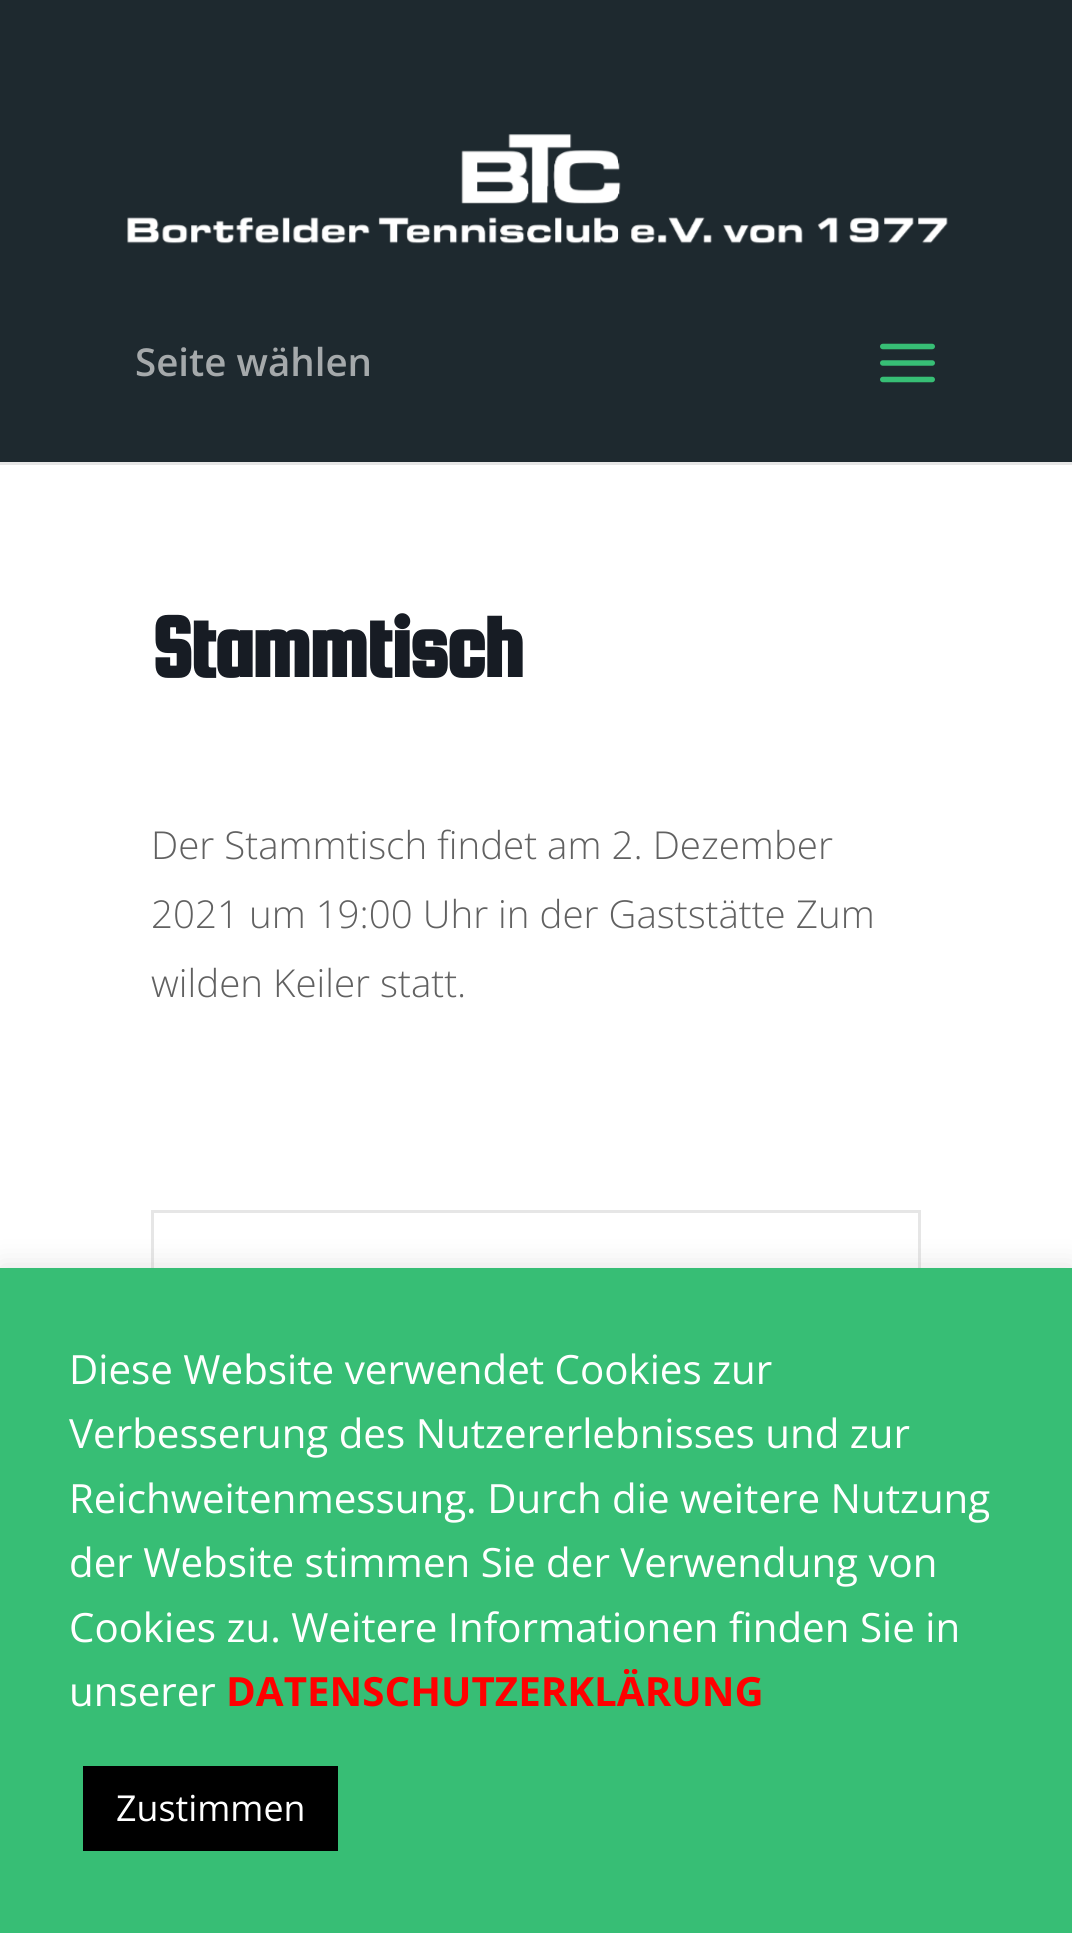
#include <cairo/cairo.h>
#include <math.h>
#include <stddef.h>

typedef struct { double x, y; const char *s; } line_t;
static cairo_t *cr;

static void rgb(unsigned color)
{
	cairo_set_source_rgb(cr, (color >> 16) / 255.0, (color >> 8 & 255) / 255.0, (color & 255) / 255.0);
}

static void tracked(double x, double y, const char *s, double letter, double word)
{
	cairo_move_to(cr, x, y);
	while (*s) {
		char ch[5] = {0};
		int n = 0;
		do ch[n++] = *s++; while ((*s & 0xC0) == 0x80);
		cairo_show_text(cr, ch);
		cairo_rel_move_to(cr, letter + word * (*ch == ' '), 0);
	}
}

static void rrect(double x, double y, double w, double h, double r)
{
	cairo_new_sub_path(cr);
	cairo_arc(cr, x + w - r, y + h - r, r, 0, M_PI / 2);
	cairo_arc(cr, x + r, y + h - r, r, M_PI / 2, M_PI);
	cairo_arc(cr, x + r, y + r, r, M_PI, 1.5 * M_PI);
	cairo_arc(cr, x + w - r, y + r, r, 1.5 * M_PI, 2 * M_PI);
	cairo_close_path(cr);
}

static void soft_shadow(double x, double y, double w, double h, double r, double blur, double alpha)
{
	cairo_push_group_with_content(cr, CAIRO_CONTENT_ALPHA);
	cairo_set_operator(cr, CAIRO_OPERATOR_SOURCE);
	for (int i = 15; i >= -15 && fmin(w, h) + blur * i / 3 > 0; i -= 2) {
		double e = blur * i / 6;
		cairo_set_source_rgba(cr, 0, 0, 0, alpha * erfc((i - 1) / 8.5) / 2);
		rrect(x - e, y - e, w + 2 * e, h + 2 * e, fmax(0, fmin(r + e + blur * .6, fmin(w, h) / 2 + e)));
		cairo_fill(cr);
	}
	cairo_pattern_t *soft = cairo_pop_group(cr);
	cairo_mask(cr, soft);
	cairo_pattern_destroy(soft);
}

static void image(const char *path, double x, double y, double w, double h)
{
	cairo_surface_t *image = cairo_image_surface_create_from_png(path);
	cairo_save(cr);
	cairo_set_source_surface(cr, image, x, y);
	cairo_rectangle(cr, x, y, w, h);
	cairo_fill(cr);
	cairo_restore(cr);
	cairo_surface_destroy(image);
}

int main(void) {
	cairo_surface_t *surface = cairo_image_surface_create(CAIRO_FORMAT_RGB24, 1072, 1933);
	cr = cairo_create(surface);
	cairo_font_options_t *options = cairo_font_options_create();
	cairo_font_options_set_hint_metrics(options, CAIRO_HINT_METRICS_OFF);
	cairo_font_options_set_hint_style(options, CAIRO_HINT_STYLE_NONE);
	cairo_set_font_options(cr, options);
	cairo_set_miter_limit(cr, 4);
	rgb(0xffffff);
	cairo_paint(cr);
	rgb(0xe6e6e6);
	cairo_new_path(cr);
	cairo_move_to(cr, 0, 462);
	cairo_line_to(cr, 0, 465);
	cairo_line_to(cr, 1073, 465);
	cairo_line_to(cr, 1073, 3);
	cairo_line_to(cr, 1072, 3);
	cairo_line_to(cr, 1072, 462);
	cairo_close_path(cr);
	cairo_fill(cr);
	rgb(0x1e292f);
	cairo_rectangle(cr, 0, 0, 1072, 462);
	cairo_fill(cr);
	image("img/1.png", 127, 134, 821, 110);
	image("img/2.png", 880, 343, 55, 40);
	cairo_rectangle(cr, 152.5, 1211.5, 767, 621);
	rgb(0xe6e6e6);
	cairo_set_line_width(cr, 3);
	cairo_stroke(cr);
	rgb(0xacabab);
	soft_shadow(0, 1265, 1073, 666, 0, 14, 0.3);
	rgb(0x37be75);
	cairo_rectangle(cr, 0, 1268, 1072, 665);
	cairo_fill(cr);
	rgb(0x000000);
	cairo_rectangle(cr, 83, 1766, 255, 85);
	cairo_fill(cr);
	cairo_select_font_face(cr, "Open Sans SemiBold", CAIRO_FONT_SLANT_NORMAL, CAIRO_FONT_WEIGHT_NORMAL);
	cairo_set_font_size(cr, 38.5);
	rgb(0xa5a9ab);
	cairo_move_to(cr, 135, 376);
	cairo_show_text(cr, "Seite wählen");
	cairo_select_font_face(cr, "Squada One", CAIRO_FONT_SLANT_NORMAL, CAIRO_FONT_WEIGHT_BOLD);
	cairo_set_font_size(cr, 90.75);
	rgb(0x171c24);
	tracked(151, 677, "Stammtisch", -2.75, 0);
	cairo_select_font_face(cr, "Open Sans Light", CAIRO_FONT_SLANT_NORMAL, CAIRO_FONT_WEIGHT_NORMAL);
	cairo_set_font_size(cr, 38.5);
	rgb(0x616161);
	{
		static const line_t items[] = {
			{151, 859, "Der Stammtisch findet am 2. Dezember"},
			{151, 928, "2021 um 19:00 Uhr in der Gaststätte Zum"},
			{151, 997, "wilden Keiler statt."},
		};
		for (size_t i = 0; i < sizeof items / sizeof *items; i++) {
			cairo_move_to(cr, items[i].x, items[i].y);
			cairo_show_text(cr, items[i].s);
		}
	}
	cairo_select_font_face(cr, "Open Sans", CAIRO_FONT_SLANT_NORMAL, CAIRO_FONT_WEIGHT_NORMAL);
	cairo_set_font_size(cr, 40.3);
	rgb(0xffffff);
	{
		static const line_t items[] = {
			{69, 1384, "Diese Website verwendet Cookies zur"},
			{69, 1448, "Verbesserung des Nutzererlebnisses und zur"},
			{69, 1513, "Reichweitenmessung. Durch die weitere Nutzung"},
			{69, 1577, "der Website stimmen Sie der Verwendung von"},
			{69, 1642, "Cookies zu. Weitere Informationen finden Sie in"},
			{69, 1706, "unserer"},
		};
		for (size_t i = 0; i < sizeof items / sizeof *items; i++) {
			cairo_move_to(cr, items[i].x, items[i].y);
			cairo_show_text(cr, items[i].s);
		}
	}
	cairo_select_font_face(cr, "Open Sans", CAIRO_FONT_SLANT_NORMAL, CAIRO_FONT_WEIGHT_BOLD);
	rgb(0xff0000);
	cairo_move_to(cr, 226, 1706);
	cairo_show_text(cr, "DATENSCHUTZERKLÄRUNG");
	cairo_select_font_face(cr, "Open Sans", CAIRO_FONT_SLANT_NORMAL, CAIRO_FONT_WEIGHT_NORMAL);
	cairo_set_font_size(cr, 35.75);
	rgb(0xffffff);
	cairo_move_to(cr, 116, 1821);
	cairo_show_text(cr, "Zustimmen");
	cairo_surface_write_to_png(surface, "page.png");
	cairo_font_options_destroy(options);
	cairo_destroy(cr);
	cairo_surface_destroy(surface);
	return 0;
}
